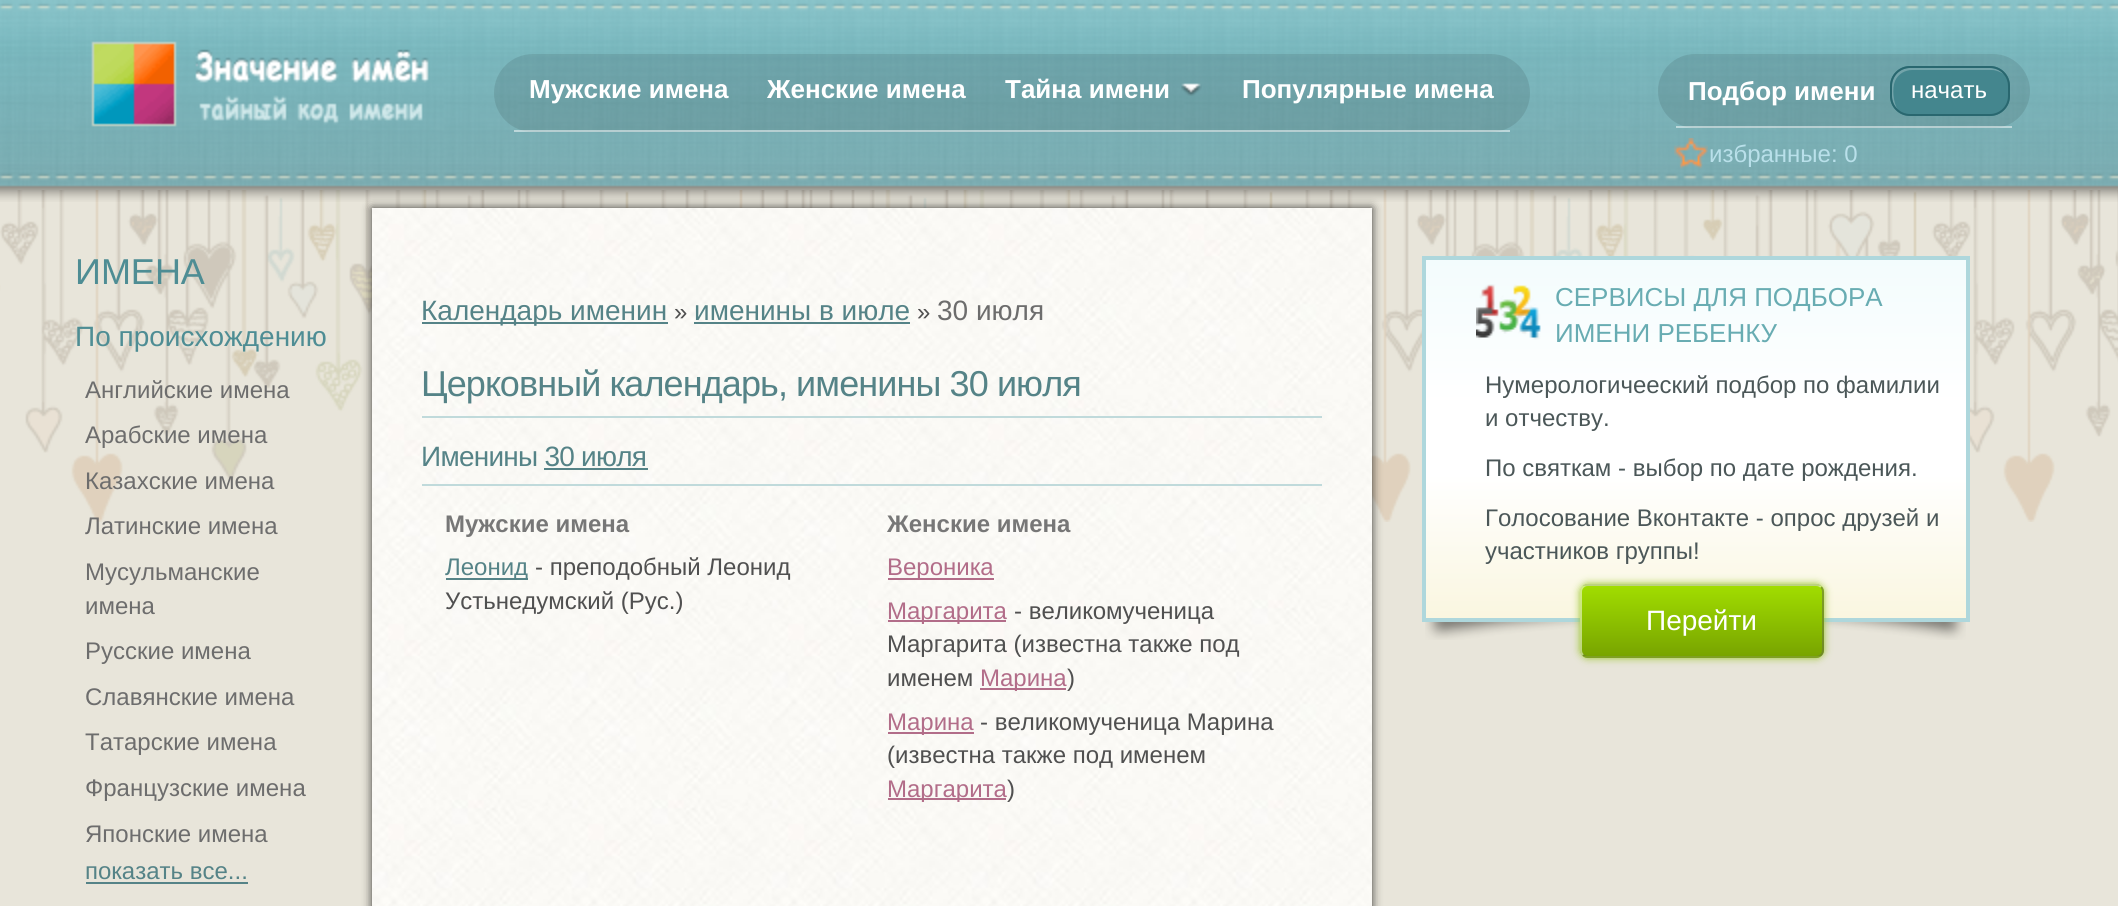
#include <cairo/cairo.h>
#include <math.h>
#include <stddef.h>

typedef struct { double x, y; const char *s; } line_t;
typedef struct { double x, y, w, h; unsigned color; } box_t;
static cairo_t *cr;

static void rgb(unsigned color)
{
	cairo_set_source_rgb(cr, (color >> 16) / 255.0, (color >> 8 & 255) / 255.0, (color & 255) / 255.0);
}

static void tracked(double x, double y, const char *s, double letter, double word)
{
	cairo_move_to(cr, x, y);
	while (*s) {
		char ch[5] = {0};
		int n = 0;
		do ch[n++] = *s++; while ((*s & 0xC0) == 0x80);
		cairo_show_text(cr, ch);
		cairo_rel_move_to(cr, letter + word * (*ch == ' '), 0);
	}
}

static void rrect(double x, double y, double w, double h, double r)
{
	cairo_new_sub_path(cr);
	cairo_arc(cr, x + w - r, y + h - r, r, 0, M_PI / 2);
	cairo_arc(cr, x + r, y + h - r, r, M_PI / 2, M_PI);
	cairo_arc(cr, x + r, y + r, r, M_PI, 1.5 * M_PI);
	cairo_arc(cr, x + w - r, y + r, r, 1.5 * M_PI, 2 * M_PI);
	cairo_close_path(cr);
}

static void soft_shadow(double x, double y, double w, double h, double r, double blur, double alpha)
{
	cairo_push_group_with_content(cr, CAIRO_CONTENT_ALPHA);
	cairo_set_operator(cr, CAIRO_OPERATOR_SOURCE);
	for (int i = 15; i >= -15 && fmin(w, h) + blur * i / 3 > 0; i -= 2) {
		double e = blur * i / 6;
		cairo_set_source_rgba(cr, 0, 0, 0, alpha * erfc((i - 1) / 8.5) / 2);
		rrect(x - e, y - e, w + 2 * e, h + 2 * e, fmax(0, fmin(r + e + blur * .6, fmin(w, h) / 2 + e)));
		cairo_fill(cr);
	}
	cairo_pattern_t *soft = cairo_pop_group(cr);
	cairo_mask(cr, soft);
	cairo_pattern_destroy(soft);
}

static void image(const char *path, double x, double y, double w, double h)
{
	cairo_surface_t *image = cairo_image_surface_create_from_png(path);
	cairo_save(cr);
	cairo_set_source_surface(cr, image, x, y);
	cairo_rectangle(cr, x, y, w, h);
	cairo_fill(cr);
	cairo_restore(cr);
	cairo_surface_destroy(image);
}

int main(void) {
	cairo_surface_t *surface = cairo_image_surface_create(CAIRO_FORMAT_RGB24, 2118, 906);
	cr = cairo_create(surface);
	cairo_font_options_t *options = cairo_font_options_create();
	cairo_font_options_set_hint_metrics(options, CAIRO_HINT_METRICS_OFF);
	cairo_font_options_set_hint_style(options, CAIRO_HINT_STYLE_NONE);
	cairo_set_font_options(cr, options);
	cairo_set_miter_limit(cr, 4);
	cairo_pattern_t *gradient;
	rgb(0xe8e5da);
	cairo_paint(cr);
	image("img/1.png", 0, 190, 2118, 332);
	rgb(0x000000);
	soft_shadow(372, 208, 1000, 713, 0, 5, 0.75);
	image("img/2.png", 0, 0, 2118, 202);
	image("img/3.png", 91, 41, 338, 86);
	cairo_set_source_rgba(cr, 0, 0, 0, 0.1);
	rrect(494, 54, 1036, 78, 39);
	cairo_fill(cr);
	cairo_set_source_rgba(cr, 1, 1, 1, 0.5);
	cairo_rectangle(cr, 514, 130, 996, 2);
	cairo_fill(cr);
	image("img/4.png", 1181, 83, 21, 13);
	cairo_set_source_rgba(cr, 0, 0, 0, 0.1);
	rrect(1658, 54, 372, 74, 37);
	cairo_fill(cr);
	cairo_set_source_rgba(cr, 1, 1, 1, 0.5);
	cairo_rectangle(cr, 1676, 126, 336, 2);
	cairo_fill(cr);
	rgb(0x44868e);
	rrect(1890, 66, 120, 50, 20);
	cairo_fill(cr);
	rgb(0x73a4aa);
	cairo_new_path(cr);
	cairo_move_to(cr, 1912, 70);
	cairo_line_to(cr, 1992, 70);
	cairo_curve_to(cr, 1996, 70, 2000, 72, 2004, 74);
	cairo_curve_to(cr, 2000, 70, 1995, 68, 1990, 68);
	cairo_line_to(cr, 1910, 68);
	cairo_curve_to(cr, 1900, 68, 1892, 76, 1892, 86);
	cairo_line_to(cr, 1892, 96);
	cairo_curve_to(cr, 1892, 101, 1894, 106, 1898, 110);
	cairo_curve_to(cr, 1893, 103, 1892, 88, 1895, 81);
	cairo_curve_to(cr, 1898, 74, 1905, 70, 1912, 70);
	cairo_close_path(cr);
	cairo_fill(cr);
	rrect(1891, 67, 118, 48, 19);
	rgb(0x29676f);
	cairo_stroke(cr);
	image("img/5.png", 1674, 138, 34, 31);
	image("img/6.png", 372, 208, 1000, 698);
	{
		static const box_t items[] = {
			{86, 882, 162, 2, 0x558387},
			{422, 322, 246, 2, 0x558387},
			{694, 322, 216, 2, 0x558387},
			{422, 416, 900, 2, 0xc0dadb},
			{422, 484, 900, 2, 0xc0dadb},
			{544, 468, 104, 2, 0x558387},
			{446, 578, 82, 2, 0x558387},
			{888, 578, 106, 2, 0xb26d89},
			{888, 620, 118, 2, 0xb26d89},
			{980, 688, 86, 2, 0xb26d89},
			{888, 732, 86, 2, 0xb26d89},
			{888, 798, 118, 2, 0xb26d89},
		};
		for (size_t i = 0; i < sizeof items / sizeof *items; i++) {
			rgb(items[i].color);
			cairo_rectangle(cr, items[i].x, items[i].y, items[i].w, items[i].h);
			cairo_fill(cr);
		}
	}
	gradient = cairo_pattern_create_linear(1696, 260, 1696, 618);
	cairo_pattern_add_color_stop_rgba(gradient, 0, 0.953, 0.988, 0.992, 1);
	cairo_pattern_add_color_stop_rgba(gradient, 0.4, 1, 1, 1, 1);
	cairo_pattern_add_color_stop_rgba(gradient, 0.6, 1, 1, 1, 1);
	cairo_pattern_add_color_stop_rgba(gradient, 1, 0.98, 0.965, 0.878, 1);
	cairo_set_source(cr, gradient);
	cairo_pattern_destroy(gradient);
	cairo_rectangle(cr, 1426, 260, 540, 358);
	cairo_fill(cr);
	cairo_rectangle(cr, 1424, 258, 544, 362);
	rgb(0xaed7dc);
	cairo_set_line_width(cr, 4);
	cairo_stroke(cr);
	image("img/7.png", 1476, 284, 65, 56);
	image("img/8.png", 1425, 622, 541, 18);
	rgb(0x99c328);
	soft_shadow(1580, 584, 244, 74, 8, 4, 1);
	cairo_save(cr);
	rrect(1580, 584, 244, 74, 8);
	cairo_clip(cr);
	gradient = cairo_pattern_create_linear(1702, 516, 1702, 586);
	cairo_pattern_add_color_stop_rgba(gradient, 0, 0.631, 0.867, 0, 1);
	cairo_pattern_add_color_stop_rgba(gradient, 1, 0.471, 0.643, 0, 1);
	cairo_set_source(cr, gradient);
	cairo_pattern_destroy(gradient);
	cairo_rectangle(cr, 1580, 584, 244, 2);
	cairo_fill(cr);
	gradient = cairo_pattern_create_linear(1702, 586, 1702, 656);
	cairo_pattern_add_color_stop_rgba(gradient, 0, 0.631, 0.867, 0, 1);
	cairo_pattern_add_color_stop_rgba(gradient, 1, 0.471, 0.643, 0, 1);
	cairo_set_source(cr, gradient);
	cairo_pattern_destroy(gradient);
	cairo_rectangle(cr, 1580, 586, 244, 70);
	cairo_fill(cr);
	gradient = cairo_pattern_create_linear(1702, 656, 1702, 726);
	cairo_pattern_add_color_stop_rgba(gradient, 0, 0.631, 0.867, 0, 1);
	cairo_pattern_add_color_stop_rgba(gradient, 1, 0.471, 0.643, 0, 1);
	cairo_set_source(cr, gradient);
	cairo_pattern_destroy(gradient);
	cairo_rectangle(cr, 1580, 656, 244, 2);
	cairo_fill(cr);
	cairo_restore(cr);
	cairo_new_path(cr);
	cairo_move_to(cr, 1821, 587);
	cairo_curve_to(cr, 1822.5, 588.5, 1823, 590, 1823, 592);
	cairo_line_to(cr, 1823, 650);
	cairo_curve_to(cr, 1823, 652, 1822.5, 653.5, 1821, 655);
	cairo_curve_to(cr, 1819.5, 656.5, 1818, 657, 1816, 657);
	cairo_line_to(cr, 1588, 657);
	cairo_curve_to(cr, 1586, 657, 1584.5, 656.5, 1583, 655);
	cairo_set_source_rgba(cr, 0.412, 0.475, 0.239, 0.6);
	cairo_set_line_width(cr, 2);
	cairo_stroke(cr);
	cairo_new_path(cr);
	cairo_move_to(cr, 1583, 655);
	cairo_curve_to(cr, 1581.5, 653.5, 1581, 652, 1581, 650);
	cairo_line_to(cr, 1581, 592);
	cairo_curve_to(cr, 1581, 590, 1581.5, 588.5, 1583, 587);
	cairo_curve_to(cr, 1584.5, 585.5, 1586, 585, 1588, 585);
	cairo_line_to(cr, 1816, 585);
	cairo_curve_to(cr, 1818, 585, 1819.5, 585.5, 1821, 587);
	cairo_set_source_rgba(cr, 1, 1, 1, 0.5);
	cairo_stroke(cr);
	cairo_select_font_face(cr, "Liberation Sans", CAIRO_FONT_SLANT_NORMAL, CAIRO_FONT_WEIGHT_BOLD);
	cairo_set_font_size(cr, 26);
	rgb(0xffffff);
	{
		static const line_t items[] = {
			{529, 98, "Мужские имена"},
			{767, 98, "Женские имена"},
			{1005, 98, "Тайна имени"},
			{1242, 98, "Популярные имена"},
			{1688, 100, "Подбор имени"},
		};
		for (size_t i = 0; i < sizeof items / sizeof *items; i++) {
			cairo_move_to(cr, items[i].x, items[i].y);
			cairo_show_text(cr, items[i].s);
		}
	}
	cairo_select_font_face(cr, "Liberation Sans", CAIRO_FONT_SLANT_NORMAL, CAIRO_FONT_WEIGHT_NORMAL);
	cairo_set_font_size(cr, 24);
	cairo_move_to(cr, 1911, 98);
	cairo_show_text(cr, "начать");
	rgb(0xb9e0ea);
	cairo_move_to(cr, 1709, 162);
	cairo_show_text(cr, "избранные: 0");
	cairo_set_font_size(cr, 36);
	rgb(0x4e8d94);
	cairo_move_to(cr, 75, 284);
	cairo_show_text(cr, "ИМЕНА");
	cairo_set_font_size(cr, 28);
	cairo_move_to(cr, 75, 346);
	cairo_show_text(cr, "По происхождению");
	cairo_set_font_size(cr, 24);
	rgb(0x6d6d6d);
	{
		static const line_t items[] = {
			{85, 398, "Английские имена"},
			{85, 443, "Арабские имена"},
			{85, 489, "Казахские имена"},
			{85, 534, "Латинские имена"},
			{85, 580, "Мусульманские"},
			{85, 614, "имена"},
			{85, 659, "Русские имена"},
			{85, 705, "Славянские имена"},
			{85, 750, "Татарские имена"},
			{85, 796, "Французские имена"},
			{85, 842, "Японские имена"},
		};
		for (size_t i = 0; i < sizeof items / sizeof *items; i++) {
			cairo_move_to(cr, items[i].x, items[i].y);
			cairo_show_text(cr, items[i].s);
		}
	}
	rgb(0x558387);
	cairo_move_to(cr, 85, 879);
	cairo_show_text(cr, "показать все...");
	cairo_set_font_size(cr, 28);
	cairo_move_to(cr, 421, 320);
	cairo_show_text(cr, "Календарь именин");
	cairo_set_font_size(cr, 24);
	rgb(0x505050);
	cairo_move_to(cr, 674, 320);
	cairo_show_text(cr, "»");
	cairo_set_font_size(cr, 28);
	rgb(0x558387);
	cairo_move_to(cr, 694, 320);
	cairo_show_text(cr, "именины в июле");
	cairo_set_font_size(cr, 24);
	rgb(0x505050);
	cairo_move_to(cr, 917, 320);
	cairo_show_text(cr, "»");
	cairo_set_font_size(cr, 28);
	rgb(0x6d6d6d);
	cairo_move_to(cr, 937, 320);
	cairo_show_text(cr, "30 июля");
	cairo_set_font_size(cr, 36);
	rgb(0x558387);
	tracked(421, 396, "Церковный календарь, именины 30 июля", -0.9, 0);
	cairo_set_font_size(cr, 28);
	tracked(421, 466, "Именины 30 июля", -0.75, 0);
	cairo_select_font_face(cr, "Liberation Sans", CAIRO_FONT_SLANT_NORMAL, CAIRO_FONT_WEIGHT_BOLD);
	cairo_set_font_size(cr, 24);
	rgb(0x777777);
	cairo_move_to(cr, 445, 532);
	cairo_show_text(cr, "Мужские имена");
	cairo_select_font_face(cr, "Liberation Sans", CAIRO_FONT_SLANT_NORMAL, CAIRO_FONT_WEIGHT_NORMAL);
	rgb(0x558387);
	cairo_move_to(cr, 445, 575);
	cairo_show_text(cr, "Леонид");
	rgb(0x505050);
	cairo_move_to(cr, 535, 575);
	cairo_show_text(cr, "- преподобный Леонид");
	cairo_move_to(cr, 445, 609);
	cairo_show_text(cr, "Устьнедумский (Рус.)");
	cairo_select_font_face(cr, "Liberation Sans", CAIRO_FONT_SLANT_NORMAL, CAIRO_FONT_WEIGHT_BOLD);
	rgb(0x777777);
	cairo_move_to(cr, 887, 532);
	cairo_show_text(cr, "Женские имена");
	cairo_select_font_face(cr, "Liberation Sans", CAIRO_FONT_SLANT_NORMAL, CAIRO_FONT_WEIGHT_NORMAL);
	rgb(0xb26d89);
	cairo_move_to(cr, 887, 575);
	cairo_show_text(cr, "Вероника");
	cairo_move_to(cr, 887, 619);
	cairo_show_text(cr, "Маргарита");
	rgb(0x505050);
	{
		static const line_t items[] = {
			{1014, 619, "- великомученица"},
			{887, 652, "Маргарита (известна также под"},
			{887, 686, "именем"},
		};
		for (size_t i = 0; i < sizeof items / sizeof *items; i++) {
			cairo_move_to(cr, items[i].x, items[i].y);
			cairo_show_text(cr, items[i].s);
		}
	}
	rgb(0xb26d89);
	cairo_move_to(cr, 980, 686);
	cairo_show_text(cr, "Марина");
	rgb(0x505050);
	cairo_move_to(cr, 1067, 686);
	cairo_show_text(cr, ")");
	rgb(0xb26d89);
	cairo_move_to(cr, 887, 730);
	cairo_show_text(cr, "Марина");
	rgb(0x505050);
	cairo_move_to(cr, 980, 730);
	cairo_show_text(cr, "- великомученица Марина");
	cairo_move_to(cr, 887, 763);
	cairo_show_text(cr, "(известна также под именем");
	rgb(0xb26d89);
	cairo_move_to(cr, 887, 797);
	cairo_show_text(cr, "Маргарита");
	rgb(0x505050);
	cairo_move_to(cr, 1007, 797);
	cairo_show_text(cr, ")");
	cairo_set_font_size(cr, 26);
	rgb(0x68acb2);
	cairo_move_to(cr, 1555, 306);
	cairo_show_text(cr, "СЕРВИСЫ ДЛЯ ПОДБОРА");
	cairo_move_to(cr, 1555, 342);
	cairo_show_text(cr, "ИМЕНИ РЕБЕНКУ");
	cairo_set_font_size(cr, 24);
	rgb(0x4b5758);
	{
		static const line_t items[] = {
			{1485, 393, "Нумерологичееский подбор по фамилии"},
			{1485, 426, "и отчеству."},
			{1485, 476, "По святкам - выбор по дате рождения."},
			{1485, 526, "Голосование Вконтакте - опрос друзей и"},
			{1485, 559, "участников группы!"},
		};
		for (size_t i = 0; i < sizeof items / sizeof *items; i++) {
			cairo_move_to(cr, items[i].x, items[i].y);
			cairo_show_text(cr, items[i].s);
		}
	}
	cairo_set_font_size(cr, 28);
	rgb(0xffffff);
	cairo_move_to(cr, 1646, 630);
	cairo_show_text(cr, "Перейти");
	cairo_surface_write_to_png(surface, "page.png");
	cairo_font_options_destroy(options);
	cairo_destroy(cr);
	cairo_surface_destroy(surface);
	return 0;
}
